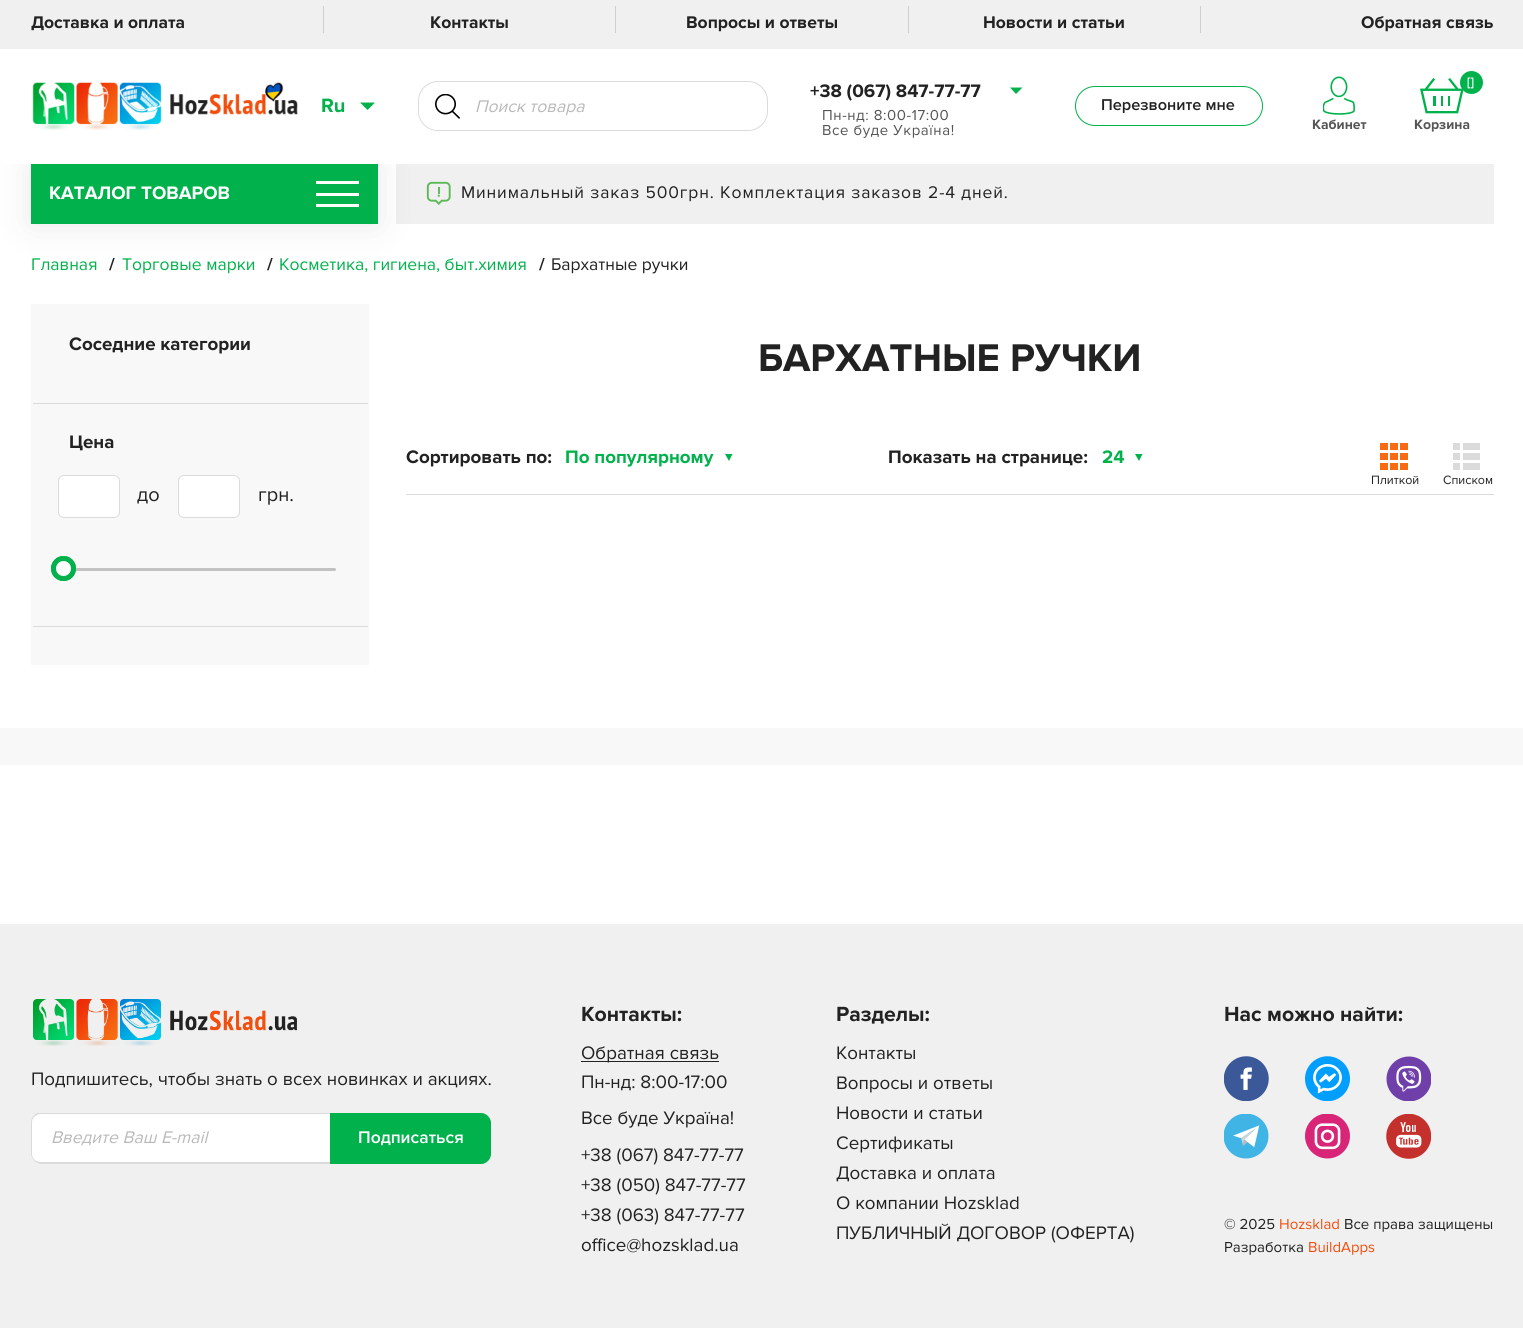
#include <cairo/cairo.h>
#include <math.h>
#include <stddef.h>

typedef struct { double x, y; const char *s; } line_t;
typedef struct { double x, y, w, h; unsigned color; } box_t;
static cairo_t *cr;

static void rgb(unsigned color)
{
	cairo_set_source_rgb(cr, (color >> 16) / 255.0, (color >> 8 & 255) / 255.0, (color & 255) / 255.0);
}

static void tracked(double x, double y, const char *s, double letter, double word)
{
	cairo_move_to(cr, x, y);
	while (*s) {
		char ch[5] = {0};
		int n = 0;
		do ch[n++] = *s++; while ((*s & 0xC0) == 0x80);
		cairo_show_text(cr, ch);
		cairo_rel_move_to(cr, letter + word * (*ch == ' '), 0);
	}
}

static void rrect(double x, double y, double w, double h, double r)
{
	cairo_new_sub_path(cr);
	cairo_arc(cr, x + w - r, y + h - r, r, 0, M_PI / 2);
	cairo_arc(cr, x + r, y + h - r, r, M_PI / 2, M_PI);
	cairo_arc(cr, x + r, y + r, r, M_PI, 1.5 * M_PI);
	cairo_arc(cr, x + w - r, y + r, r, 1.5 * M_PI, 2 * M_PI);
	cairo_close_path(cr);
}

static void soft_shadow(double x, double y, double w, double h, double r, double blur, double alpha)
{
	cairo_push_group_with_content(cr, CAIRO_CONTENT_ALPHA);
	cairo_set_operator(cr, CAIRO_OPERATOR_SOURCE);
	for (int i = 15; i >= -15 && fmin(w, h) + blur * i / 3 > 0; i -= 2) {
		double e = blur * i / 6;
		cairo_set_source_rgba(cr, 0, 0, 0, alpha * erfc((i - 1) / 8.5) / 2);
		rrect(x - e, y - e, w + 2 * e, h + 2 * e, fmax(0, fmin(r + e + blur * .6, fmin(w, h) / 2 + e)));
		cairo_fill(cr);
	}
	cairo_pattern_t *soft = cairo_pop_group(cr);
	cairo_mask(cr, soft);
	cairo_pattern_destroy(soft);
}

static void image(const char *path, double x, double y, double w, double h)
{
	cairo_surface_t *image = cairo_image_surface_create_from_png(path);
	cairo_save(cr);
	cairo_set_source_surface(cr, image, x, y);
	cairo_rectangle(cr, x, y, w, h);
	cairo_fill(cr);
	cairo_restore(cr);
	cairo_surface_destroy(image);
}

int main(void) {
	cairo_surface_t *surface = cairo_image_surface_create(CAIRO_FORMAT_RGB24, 1523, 1328);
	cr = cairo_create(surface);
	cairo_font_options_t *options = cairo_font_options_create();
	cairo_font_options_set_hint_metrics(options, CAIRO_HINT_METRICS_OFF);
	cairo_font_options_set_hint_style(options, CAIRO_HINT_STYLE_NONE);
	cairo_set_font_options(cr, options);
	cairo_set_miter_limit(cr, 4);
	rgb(0xffffff);
	cairo_paint(cr);
	{
		static const box_t items[] = {
			{0, 0, 1523, 49, 0xf0f0f0},
			{323, 6, 1, 27, 0xcfcfcf},
			{615, 6, 1, 27, 0xcfcfcf},
			{908, 6, 1, 27, 0xcfcfcf},
			{1200, 6, 1, 27, 0xcfcfcf},
		};
		for (size_t i = 0; i < sizeof items / sizeof *items; i++) {
			rgb(items[i].color);
			cairo_rectangle(cr, items[i].x, items[i].y, items[i].w, items[i].h);
			cairo_fill(cr);
		}
	}
	image("img/1.png", 32, 82, 266, 48);
	rgb(0x01b24c);
	cairo_new_path(cr);
	cairo_move_to(cr, 360, 102.5);
	cairo_line_to(cr, 375, 102.5);
	cairo_line_to(cr, 367.5, 110);
	cairo_close_path(cr);
	cairo_fill(cr);
	rrect(418.5, 81.5, 349, 49, 19.5);
	rgb(0xdbdbdb);
	cairo_set_line_width(cr, 1);
	cairo_stroke(cr);
	rgb(0xffffff);
	rrect(419, 83, 347, 47, 20);
	cairo_fill(cr);
	image("img/2.png", 435, 94, 25, 25);
	rgb(0x01b24c);
	cairo_new_path(cr);
	cairo_move_to(cr, 1010, 87.5);
	cairo_line_to(cr, 1022.5, 87.5);
	cairo_line_to(cr, 1016, 94);
	cairo_close_path(cr);
	cairo_fill(cr);
	rrect(1075.5, 86.5, 187, 39, 19.5);
	cairo_stroke(cr);
	image("img/3.png", 1323, 76, 32, 39);
	image("img/4.png", 1420, 78, 44, 36);
	cairo_arc(cr, 1471.5, 82.5, 11.5, 0, 2 * M_PI);
	cairo_fill(cr);
	rgb(0xf0f0f0);
	cairo_rectangle(cr, 396, 164, 1098, 60);
	cairo_fill(cr);
	image("img/5.png", 426, 181, 25, 24);
	cairo_save(cr);
	cairo_rectangle(cr, 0, 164, 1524, 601);
	cairo_clip(cr);
	rgb(0x000000);
	soft_shadow(31, 164, 347, 60, 0, 18, 0.09);
	cairo_restore(cr);
	{
		static const box_t items[] = {
			{31, 164, 347, 60, 0x01b24c},
			{316, 181, 43, 3, 0xffffff},
			{316, 193, 43, 3, 0xffffff},
			{316, 204, 43, 3, 0xffffff},
			{31, 304, 338, 361, 0xf8f8f8},
			{33, 403, 335, 1, 0xdbdbdb},
			{33, 626, 335, 1, 0xdbdbdb},
		};
		for (size_t i = 0; i < sizeof items / sizeof *items; i++) {
			rgb(items[i].color);
			cairo_rectangle(cr, items[i].x, items[i].y, items[i].w, items[i].h);
			cairo_fill(cr);
		}
	}
	rgb(0xffffff);
	rrect(58.5, 475.5, 61, 42, 5.5);
	cairo_fill_preserve(cr);
	rgb(0xdbdbdb);
	cairo_stroke(cr);
	rgb(0xffffff);
	rrect(178.5, 475.5, 61, 42, 5.5);
	cairo_fill_preserve(cr);
	rgb(0xdbdbdb);
	cairo_stroke(cr);
	rgb(0xc2c2c2);
	rrect(64, 568, 272, 3, 1.5);
	cairo_fill(cr);
	cairo_arc(cr, 63.5, 568.5, 10, 0, 2 * M_PI);
	rgb(0x01b24c);
	cairo_set_line_width(cr, 5);
	cairo_stroke(cr);
	rgb(0xffffff);
	cairo_arc(cr, 63.5, 568.5, 10, 0, 2 * M_PI);
	cairo_fill_preserve(cr);
	rgb(0x01b24c);
	cairo_stroke(cr);
	rgb(0xdbdbdb);
	cairo_rectangle(cr, 406, 494, 1088, 1);
	cairo_fill(cr);
	rgb(0x01b24c);
	cairo_new_path(cr);
	cairo_move_to(cr, 725, 454);
	cairo_line_to(cr, 732.5, 454);
	cairo_line_to(cr, 729, 461);
	cairo_close_path(cr);
	cairo_fill(cr);
	cairo_new_path(cr);
	cairo_move_to(cr, 1135, 454);
	cairo_line_to(cr, 1142.5, 454);
	cairo_line_to(cr, 1139, 461);
	cairo_close_path(cr);
	cairo_fill(cr);
	{
		static const box_t items[] = {
			{1380, 443, 8, 7, 0xf76c12},
			{1390, 443, 8, 7, 0xf76c12},
			{1400, 443, 8, 7, 0xf76c12},
			{1380, 453, 8, 7, 0xf76c12},
			{1390, 453, 8, 7, 0xf76c12},
			{1400, 453, 8, 7, 0xf76c12},
			{1380, 463, 8, 7, 0xf76c12},
			{1390, 463, 8, 7, 0xf76c12},
			{1400, 463, 8, 7, 0xf76c12},
			{1453, 443, 7, 7, 0xdbdbdb},
			{1463, 443, 17, 7, 0xdbdbdb},
			{1453, 453, 7, 7, 0xdbdbdb},
			{1463, 453, 17, 7, 0xdbdbdb},
			{1453, 463, 7, 7, 0xdbdbdb},
			{1463, 463, 17, 7, 0xdbdbdb},
			{0, 728, 1523, 37, 0xf8f8f8},
			{0, 924, 1523, 404, 0xf0f0f0},
		};
		for (size_t i = 0; i < sizeof items / sizeof *items; i++) {
			rgb(items[i].color);
			cairo_rectangle(cr, items[i].x, items[i].y, items[i].w, items[i].h);
			cairo_fill(cr);
		}
	}
	image("img/6.png", 33, 999, 265, 47);
	rgb(0xffffff);
	cairo_new_path(cr);
	cairo_move_to(cr, 41, 1113);
	cairo_line_to(cr, 330, 1113);
	cairo_line_to(cr, 330, 1164);
	cairo_line_to(cr, 41, 1164);
	cairo_curve_to(cr, 35.5, 1164, 31, 1159.5, 31, 1154);
	cairo_line_to(cr, 31, 1123);
	cairo_curve_to(cr, 31, 1117.5, 35.5, 1113, 41, 1113);
	cairo_close_path(cr);
	cairo_fill(cr);
	cairo_save(cr);
	cairo_rectangle(cr, 31, 1113, 460, 51);
	cairo_clip(cr);
	rgb(0xdbdbdb);
	cairo_set_fill_rule(cr, CAIRO_FILL_RULE_EVEN_ODD);
	cairo_new_path(cr);
	cairo_move_to(cr, 41, 1112);
	cairo_line_to(cr, 330, 1112);
	cairo_line_to(cr, 330, 1164);
	cairo_line_to(cr, 41, 1164);
	cairo_curve_to(cr, 36, 1164, 31, 1159, 31, 1154);
	cairo_line_to(cr, 31, 1122);
	cairo_curve_to(cr, 31, 1117, 36, 1112, 41, 1112);
	cairo_close_path(cr);
	cairo_move_to(cr, 41, 1114);
	cairo_line_to(cr, 330, 1114);
	cairo_line_to(cr, 330, 1162);
	cairo_line_to(cr, 41, 1162);
	cairo_curve_to(cr, 36, 1162, 32, 1159, 32, 1154);
	cairo_line_to(cr, 32, 1122);
	cairo_curve_to(cr, 32, 1118, 36, 1114, 41, 1114);
	cairo_close_path(cr);
	cairo_fill(cr);
	cairo_restore(cr);
	rgb(0x01b24c);
	cairo_new_path(cr);
	cairo_move_to(cr, 330.5, 1113.5);
	cairo_line_to(cr, 481, 1113.5);
	cairo_curve_to(cr, 486, 1113.5, 490.5, 1118, 490.5, 1123);
	cairo_line_to(cr, 490.5, 1154);
	cairo_curve_to(cr, 490.5, 1159, 486, 1163.5, 481, 1163.5);
	cairo_line_to(cr, 330.5, 1163.5);
	cairo_close_path(cr);
	cairo_fill_preserve(cr);
	cairo_set_line_width(cr, 1);
	cairo_stroke(cr);
	rgb(0x222222);
	cairo_rectangle(cr, 581, 1061, 138, 1);
	cairo_fill(cr);
	image("img/7.png", 1224, 1056, 45, 45);
	image("img/8.png", 1305, 1056, 45, 45);
	image("img/9.png", 1386, 1056, 45, 45);
	image("img/10.png", 1224, 1114, 45, 45);
	image("img/11.png", 1305, 1114, 45, 45);
	image("img/12.png", 1386, 1114, 45, 45);
	cairo_select_font_face(cr, "Proxima Nova", CAIRO_FONT_SLANT_NORMAL, CAIRO_FONT_WEIGHT_BOLD);
	cairo_set_font_size(cr, 17.5);
	{
		static const line_t items[] = {
			{31, 28, "Доставка и оплата"},
			{430, 28, "Контакты"},
			{686, 28, "Вопросы и ответы"},
			{983, 28, "Новости и статьи"},
			{1361, 28, "Обратная связь"},
		};
		for (size_t i = 0; i < sizeof items / sizeof *items; i++) {
			cairo_move_to(cr, items[i].x, items[i].y);
			cairo_show_text(cr, items[i].s);
		}
	}
	cairo_set_font_size(cr, 20);
	rgb(0x01b24c);
	cairo_move_to(cr, 321, 112);
	cairo_show_text(cr, "Ru");
	cairo_select_font_face(cr, "Proxima Nova", CAIRO_FONT_SLANT_ITALIC, CAIRO_FONT_WEIGHT_NORMAL);
	cairo_set_font_size(cr, 17.5);
	rgb(0xbababa);
	cairo_move_to(cr, 475, 112);
	cairo_show_text(cr, "Поиск товара");
	cairo_select_font_face(cr, "Proxima Nova", CAIRO_FONT_SLANT_NORMAL, CAIRO_FONT_WEIGHT_BOLD);
	cairo_set_font_size(cr, 18.75);
	rgb(0x222222);
	cairo_move_to(cr, 810, 97);
	cairo_show_text(cr, "+38 (067) 847-77-77");
	cairo_select_font_face(cr, "Proxima Nova", CAIRO_FONT_SLANT_NORMAL, CAIRO_FONT_WEIGHT_NORMAL);
	cairo_set_font_size(cr, 15);
	rgb(0x555555);
	tracked(822, 120, "Пн-нд: 8:00-17:00", 0.6, 0);
	tracked(822, 135, "Все буде Україна!", 0.6, 0);
	cairo_select_font_face(cr, "Proxima Nova SemiBold", CAIRO_FONT_SLANT_NORMAL, CAIRO_FONT_WEIGHT_NORMAL);
	cairo_set_font_size(cr, 16.25);
	rgb(0x222222);
	cairo_move_to(cr, 1101, 110);
	cairo_show_text(cr, "Перезвоните мне");
	cairo_select_font_face(cr, "Proxima Nova", CAIRO_FONT_SLANT_NORMAL, CAIRO_FONT_WEIGHT_BOLD);
	cairo_set_font_size(cr, 14);
	rgb(0x555555);
	cairo_move_to(cr, 1312, 129);
	cairo_show_text(cr, "Кабинет");
	cairo_set_font_size(cr, 12.5);
	rgb(0xffffff);
	cairo_move_to(cr, 1467, 86);
	cairo_show_text(cr, "[]");
	cairo_set_font_size(cr, 14);
	rgb(0x555555);
	cairo_move_to(cr, 1414, 129);
	cairo_show_text(cr, "Корзина");
	cairo_set_font_size(cr, 18.75);
	rgb(0xffffff);
	cairo_move_to(cr, 49, 199);
	cairo_show_text(cr, "КАТАЛОГ ТОВАРОВ");
	cairo_select_font_face(cr, "Proxima Nova", CAIRO_FONT_SLANT_NORMAL, CAIRO_FONT_WEIGHT_NORMAL);
	cairo_set_font_size(cr, 17.5);
	rgb(0x222222);
	tracked(461, 198, "Минимальный заказ 500грн. Комплектация заказов 2-4 дней.", 0.88, 0);
	rgb(0x01b24c);
	cairo_move_to(cr, 31, 270);
	cairo_show_text(cr, "Главная");
	cairo_select_font_face(cr, "Proxima Nova", CAIRO_FONT_SLANT_NORMAL, CAIRO_FONT_WEIGHT_BOLD);
	rgb(0x222222);
	cairo_move_to(cr, 109, 270);
	cairo_show_text(cr, "/");
	cairo_select_font_face(cr, "Proxima Nova", CAIRO_FONT_SLANT_NORMAL, CAIRO_FONT_WEIGHT_NORMAL);
	rgb(0x01b24c);
	cairo_move_to(cr, 122, 270);
	cairo_show_text(cr, "Торговые марки");
	cairo_select_font_face(cr, "Proxima Nova", CAIRO_FONT_SLANT_NORMAL, CAIRO_FONT_WEIGHT_BOLD);
	rgb(0x222222);
	cairo_move_to(cr, 267, 270);
	cairo_show_text(cr, "/");
	cairo_select_font_face(cr, "Proxima Nova", CAIRO_FONT_SLANT_NORMAL, CAIRO_FONT_WEIGHT_NORMAL);
	rgb(0x01b24c);
	cairo_move_to(cr, 279, 270);
	cairo_show_text(cr, "Косметика, гигиена, быт.химия");
	cairo_select_font_face(cr, "Proxima Nova", CAIRO_FONT_SLANT_NORMAL, CAIRO_FONT_WEIGHT_BOLD);
	rgb(0x222222);
	cairo_move_to(cr, 539, 270);
	cairo_show_text(cr, "/");
	cairo_select_font_face(cr, "Proxima Nova", CAIRO_FONT_SLANT_NORMAL, CAIRO_FONT_WEIGHT_NORMAL);
	cairo_move_to(cr, 551, 270);
	cairo_show_text(cr, "Бархатные ручки");
	cairo_select_font_face(cr, "Proxima Nova", CAIRO_FONT_SLANT_NORMAL, CAIRO_FONT_WEIGHT_BOLD);
	cairo_set_font_size(cr, 18.75);
	cairo_move_to(cr, 69, 350);
	cairo_show_text(cr, "Соседние категории");
	cairo_move_to(cr, 69, 448);
	cairo_show_text(cr, "Цена");
	cairo_select_font_face(cr, "Proxima Nova", CAIRO_FONT_SLANT_NORMAL, CAIRO_FONT_WEIGHT_NORMAL);
	cairo_set_font_size(cr, 20);
	cairo_move_to(cr, 137, 501);
	cairo_show_text(cr, "до");
	cairo_move_to(cr, 258, 501);
	cairo_show_text(cr, "грн.");
	cairo_select_font_face(cr, "Proxima Nova", CAIRO_FONT_SLANT_NORMAL, CAIRO_FONT_WEIGHT_BOLD);
	cairo_set_font_size(cr, 40);
	cairo_move_to(cr, 758, 371);
	cairo_show_text(cr, "БАРХАТНЫЕ РУЧКИ");
	cairo_set_font_size(cr, 18.75);
	cairo_move_to(cr, 406, 463);
	cairo_show_text(cr, "Сортировать по:");
	rgb(0x01b24c);
	cairo_move_to(cr, 565, 463);
	cairo_show_text(cr, "По популярному");
	rgb(0x222222);
	cairo_move_to(cr, 888, 463);
	cairo_show_text(cr, "Показать на странице:");
	rgb(0x01b24c);
	cairo_move_to(cr, 1102, 463);
	cairo_show_text(cr, "24");
	cairo_select_font_face(cr, "Proxima Nova", CAIRO_FONT_SLANT_NORMAL, CAIRO_FONT_WEIGHT_NORMAL);
	cairo_set_font_size(cr, 12.5);
	rgb(0x222222);
	cairo_move_to(cr, 1371, 484);
	cairo_show_text(cr, "Плиткой");
	cairo_move_to(cr, 1443, 484);
	cairo_show_text(cr, "Списком");
	cairo_set_font_size(cr, 18.75);
	cairo_move_to(cr, 31, 1085);
	cairo_show_text(cr, "Подпишитесь, чтобы знать о всех новинках и акциях.");
	cairo_select_font_face(cr, "Proxima Nova", CAIRO_FONT_SLANT_ITALIC, CAIRO_FONT_WEIGHT_NORMAL);
	cairo_set_font_size(cr, 17.5);
	rgb(0xbababa);
	cairo_move_to(cr, 51, 1143);
	cairo_show_text(cr, "Введите Ваш E-mail");
	cairo_select_font_face(cr, "Proxima Nova SemiBold", CAIRO_FONT_SLANT_NORMAL, CAIRO_FONT_WEIGHT_NORMAL);
	rgb(0xffffff);
	cairo_move_to(cr, 358, 1143);
	cairo_show_text(cr, "Подписаться");
	cairo_select_font_face(cr, "Proxima Nova", CAIRO_FONT_SLANT_NORMAL, CAIRO_FONT_WEIGHT_BOLD);
	cairo_set_font_size(cr, 21.25);
	rgb(0x222222);
	cairo_move_to(cr, 581, 1021);
	cairo_show_text(cr, "Контакты:");
	cairo_select_font_face(cr, "Proxima Nova", CAIRO_FONT_SLANT_NORMAL, CAIRO_FONT_WEIGHT_NORMAL);
	cairo_set_font_size(cr, 18.75);
	{
		static const line_t items[] = {
			{581, 1059, "Обратная связь"},
			{581, 1088, "Пн-нд: 8:00-17:00"},
			{581, 1124, "Все буде Україна!"},
			{581, 1161, "+38 (067) 847-77-77"},
			{581, 1191, "+38 (050) 847-77-77"},
			{581, 1221, "+38 (063) 847-77-77"},
			{581, 1251, "office@hozsklad.ua"},
		};
		for (size_t i = 0; i < sizeof items / sizeof *items; i++) {
			cairo_move_to(cr, items[i].x, items[i].y);
			cairo_show_text(cr, items[i].s);
		}
	}
	cairo_select_font_face(cr, "Proxima Nova", CAIRO_FONT_SLANT_NORMAL, CAIRO_FONT_WEIGHT_BOLD);
	cairo_set_font_size(cr, 21.25);
	cairo_move_to(cr, 836, 1021);
	cairo_show_text(cr, "Разделы:");
	cairo_select_font_face(cr, "Proxima Nova", CAIRO_FONT_SLANT_NORMAL, CAIRO_FONT_WEIGHT_NORMAL);
	cairo_set_font_size(cr, 18.75);
	{
		static const line_t items[] = {
			{836, 1059, "Контакты"},
			{836, 1089, "Вопросы и ответы"},
			{836, 1119, "Новости и статьи"},
			{836, 1149, "Сертификаты"},
			{836, 1179, "Доставка и оплата"},
			{836, 1209, "О компании Hozsklad"},
			{836, 1239, "ПУБЛИЧНЫЙ ДОГОВОР (ОФЕРТА)"},
		};
		for (size_t i = 0; i < sizeof items / sizeof *items; i++) {
			cairo_move_to(cr, items[i].x, items[i].y);
			cairo_show_text(cr, items[i].s);
		}
	}
	cairo_select_font_face(cr, "Proxima Nova", CAIRO_FONT_SLANT_NORMAL, CAIRO_FONT_WEIGHT_BOLD);
	cairo_set_font_size(cr, 21.25);
	cairo_move_to(cr, 1224, 1021);
	cairo_show_text(cr, "Нас можно найти:");
	cairo_select_font_face(cr, "Proxima Nova", CAIRO_FONT_SLANT_NORMAL, CAIRO_FONT_WEIGHT_NORMAL);
	cairo_set_font_size(cr, 15);
	cairo_move_to(cr, 1224, 1229);
	cairo_show_text(cr, "© 2025");
	rgb(0xf24e0d);
	cairo_move_to(cr, 1279, 1229);
	cairo_show_text(cr, "Hozsklad");
	rgb(0x222222);
	cairo_move_to(cr, 1344, 1229);
	cairo_show_text(cr, "Все права защищены");
	cairo_move_to(cr, 1224, 1252);
	cairo_show_text(cr, "Разработка");
	rgb(0xf24e0d);
	cairo_move_to(cr, 1308, 1252);
	cairo_show_text(cr, "BuildApps");
	cairo_surface_write_to_png(surface, "page.png");
	cairo_font_options_destroy(options);
	cairo_destroy(cr);
	cairo_surface_destroy(surface);
	return 0;
}
